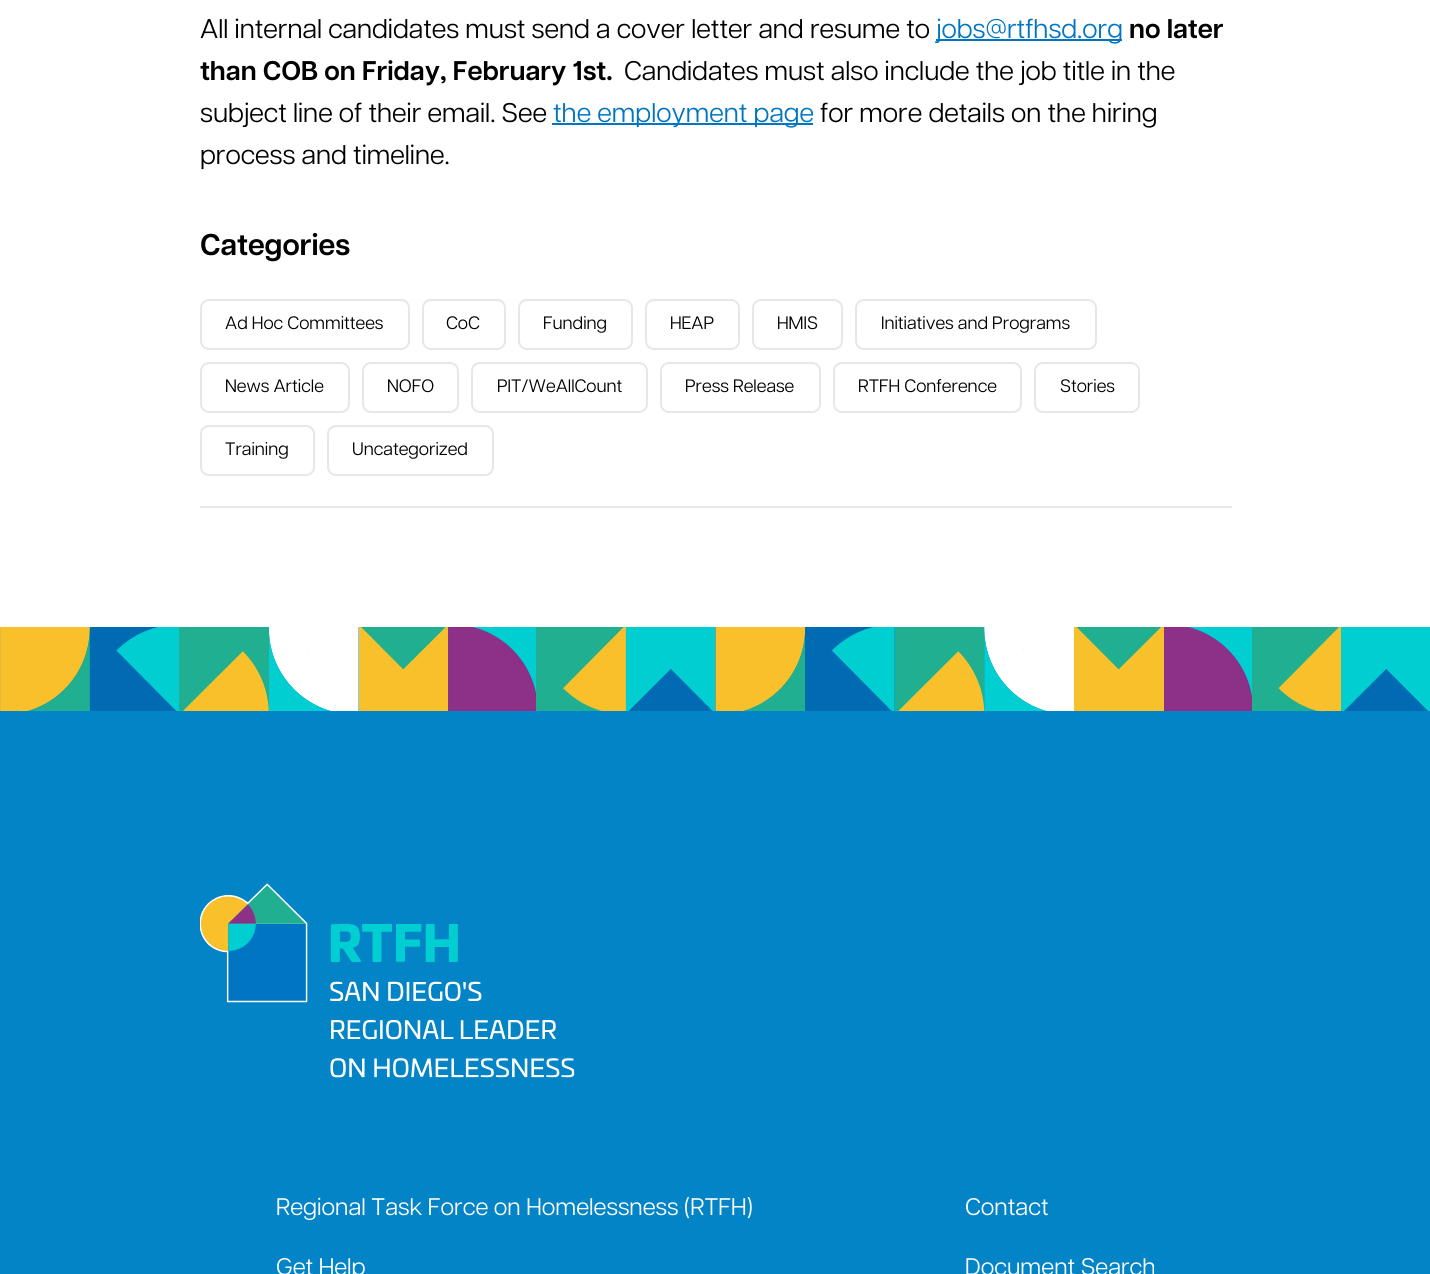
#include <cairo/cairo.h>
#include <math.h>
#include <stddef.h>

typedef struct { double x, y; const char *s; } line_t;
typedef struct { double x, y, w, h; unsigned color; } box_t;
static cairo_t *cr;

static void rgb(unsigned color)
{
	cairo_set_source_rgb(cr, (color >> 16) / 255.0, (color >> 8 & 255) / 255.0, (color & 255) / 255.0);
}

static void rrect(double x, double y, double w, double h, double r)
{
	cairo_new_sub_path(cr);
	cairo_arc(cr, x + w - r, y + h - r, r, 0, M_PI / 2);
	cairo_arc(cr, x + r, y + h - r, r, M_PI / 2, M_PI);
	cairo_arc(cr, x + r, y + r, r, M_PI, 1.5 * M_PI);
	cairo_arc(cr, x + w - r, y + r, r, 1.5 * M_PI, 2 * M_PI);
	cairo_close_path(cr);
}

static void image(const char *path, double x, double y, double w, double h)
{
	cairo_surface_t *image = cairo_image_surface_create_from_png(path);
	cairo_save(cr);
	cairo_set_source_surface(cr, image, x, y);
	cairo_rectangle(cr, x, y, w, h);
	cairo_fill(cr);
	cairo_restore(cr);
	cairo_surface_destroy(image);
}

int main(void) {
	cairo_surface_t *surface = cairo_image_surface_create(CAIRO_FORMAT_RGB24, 1430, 1274);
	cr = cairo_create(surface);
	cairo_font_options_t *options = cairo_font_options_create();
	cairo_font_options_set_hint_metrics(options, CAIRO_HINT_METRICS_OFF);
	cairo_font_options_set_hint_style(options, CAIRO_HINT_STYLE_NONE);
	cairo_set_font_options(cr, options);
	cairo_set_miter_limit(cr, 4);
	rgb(0xffffff);
	cairo_paint(cr);
	{
		static const box_t items[] = {
			{936, 39, 186, 2, 0x0075c2},
			{552, 123, 261, 2, 0x0075c2},
			{200, 506, 1032, 2, 0xe5e7eb},
		};
		for (size_t i = 0; i < sizeof items / sizeof *items; i++) {
			rgb(items[i].color);
			cairo_rectangle(cr, items[i].x, items[i].y, items[i].w, items[i].h);
			cairo_fill(cr);
		}
	}
	rrect(201, 300, 208, 49, 8);
	cairo_stroke(cr);
	rrect(423, 300, 82, 49, 8);
	cairo_stroke(cr);
	rrect(519, 300, 113, 49, 8);
	cairo_stroke(cr);
	rrect(646, 300, 93, 49, 8);
	cairo_stroke(cr);
	rrect(753, 300, 89, 49, 8);
	cairo_stroke(cr);
	rrect(856, 300, 240, 49, 8);
	cairo_stroke(cr);
	rrect(201, 363, 148, 49, 8);
	cairo_stroke(cr);
	rrect(363, 363, 95, 49, 8);
	cairo_stroke(cr);
	rrect(472, 363, 175, 49, 8);
	cairo_stroke(cr);
	rrect(661, 363, 159, 49, 8);
	cairo_stroke(cr);
	rrect(834, 363, 187, 49, 8);
	cairo_stroke(cr);
	rrect(1035, 363, 104, 49, 8);
	cairo_stroke(cr);
	rrect(201, 426, 113, 49, 8);
	cairo_stroke(cr);
	rrect(328, 426, 165, 49, 8);
	cairo_stroke(cr);
	rgb(0x0284c7);
	cairo_rectangle(cr, 0, 627, 1430, 647);
	cairo_fill(cr);
	image("img/1.png", 0, 627, 1430, 84);
	image("img/2.png", 200, 883, 375, 195);
	cairo_select_font_face(cr, "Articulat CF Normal", CAIRO_FONT_SLANT_NORMAL, CAIRO_FONT_WEIGHT_NORMAL);
	cairo_set_font_size(cr, 27);
	rgb(0x000000);
	cairo_move_to(cr, 200, 38);
	cairo_show_text(cr, "All internal candidates must send a cover letter and resume to");
	rgb(0x0075c2);
	cairo_move_to(cr, 936, 38);
	cairo_show_text(cr, "jobs@rtfhsd.org");
	cairo_select_font_face(cr, "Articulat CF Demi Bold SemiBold", CAIRO_FONT_SLANT_NORMAL, CAIRO_FONT_WEIGHT_NORMAL);
	rgb(0x000000);
	cairo_move_to(cr, 1129, 38);
	cairo_show_text(cr, "no later");
	cairo_move_to(cr, 200, 80);
	cairo_show_text(cr, "than COB on Friday, February 1st.");
	cairo_select_font_face(cr, "Articulat CF Normal", CAIRO_FONT_SLANT_NORMAL, CAIRO_FONT_WEIGHT_NORMAL);
	cairo_move_to(cr, 624, 80);
	cairo_show_text(cr, "Candidates must also include the job title in the");
	cairo_move_to(cr, 200, 122);
	cairo_show_text(cr, "subject line of their email. See");
	rgb(0x0075c2);
	cairo_move_to(cr, 553, 122);
	cairo_show_text(cr, "the employment page");
	rgb(0x000000);
	cairo_move_to(cr, 820, 122);
	cairo_show_text(cr, "for more details on the hiring");
	cairo_move_to(cr, 200, 164);
	cairo_show_text(cr, "process and timeline.");
	cairo_select_font_face(cr, "Articulat CF Demi Bold SemiBold", CAIRO_FONT_SLANT_NORMAL, CAIRO_FONT_WEIGHT_NORMAL);
	cairo_set_font_size(cr, 30);
	cairo_move_to(cr, 200, 255);
	cairo_show_text(cr, "Categories");
	cairo_select_font_face(cr, "Articulat CF Normal", CAIRO_FONT_SLANT_NORMAL, CAIRO_FONT_WEIGHT_NORMAL);
	cairo_set_font_size(cr, 18);
	{
		static const line_t items[] = {
			{225, 329, "Ad Hoc Committees"},
			{446, 329, "CoC"},
			{543, 329, "Funding"},
			{670, 329, "HEAP"},
			{777, 329, "HMIS"},
			{881, 329, "Initiatives and Programs"},
			{225, 392, "News Article"},
			{387, 392, "NOFO"},
			{497, 392, "PIT/WeAllCount"},
			{685, 392, "Press Release"},
			{858, 392, "RTFH Conference"},
			{1060, 392, "Stories"},
			{225, 455, "Training"},
			{352, 455, "Uncategorized"},
		};
		for (size_t i = 0; i < sizeof items / sizeof *items; i++) {
			cairo_move_to(cr, items[i].x, items[i].y);
			cairo_show_text(cr, items[i].s);
		}
	}
	cairo_set_font_size(cr, 24);
	rgb(0xffffff);
	{
		static const line_t items[] = {
			{276, 1215, "Regional Task Force on Homelessness (RTFH)"},
			{276, 1275, "Get Help"},
			{965, 1215, "Contact"},
			{965, 1275, "Document Search"},
		};
		for (size_t i = 0; i < sizeof items / sizeof *items; i++) {
			cairo_move_to(cr, items[i].x, items[i].y);
			cairo_show_text(cr, items[i].s);
		}
	}
	cairo_surface_write_to_png(surface, "page.png");
	cairo_font_options_destroy(options);
	cairo_destroy(cr);
	cairo_surface_destroy(surface);
	return 0;
}
